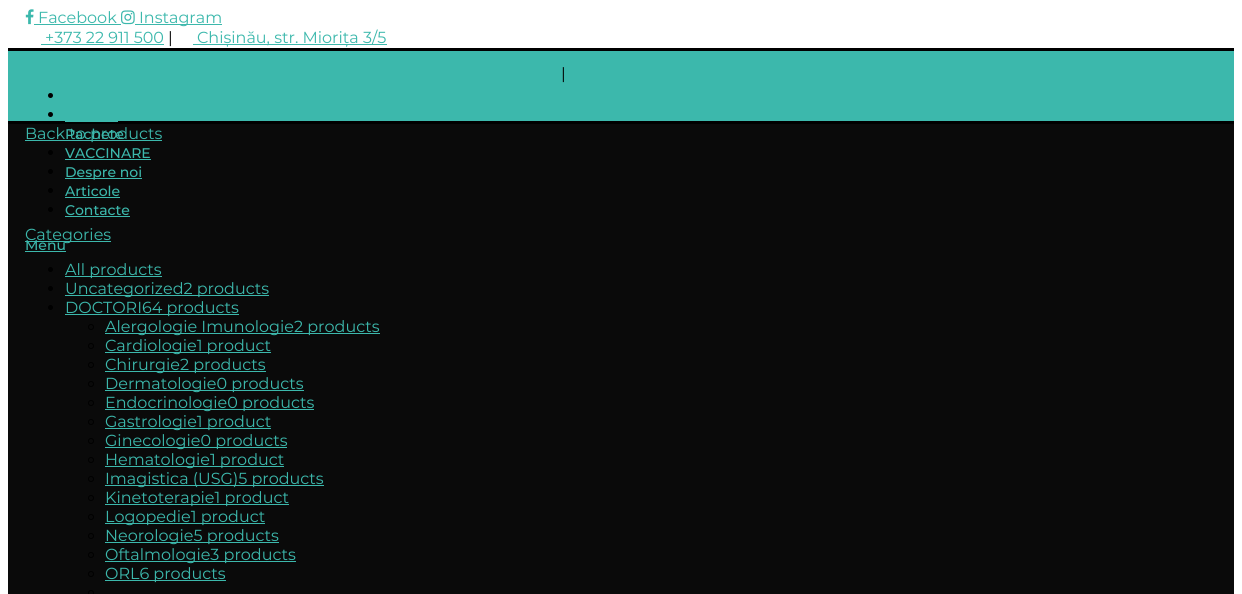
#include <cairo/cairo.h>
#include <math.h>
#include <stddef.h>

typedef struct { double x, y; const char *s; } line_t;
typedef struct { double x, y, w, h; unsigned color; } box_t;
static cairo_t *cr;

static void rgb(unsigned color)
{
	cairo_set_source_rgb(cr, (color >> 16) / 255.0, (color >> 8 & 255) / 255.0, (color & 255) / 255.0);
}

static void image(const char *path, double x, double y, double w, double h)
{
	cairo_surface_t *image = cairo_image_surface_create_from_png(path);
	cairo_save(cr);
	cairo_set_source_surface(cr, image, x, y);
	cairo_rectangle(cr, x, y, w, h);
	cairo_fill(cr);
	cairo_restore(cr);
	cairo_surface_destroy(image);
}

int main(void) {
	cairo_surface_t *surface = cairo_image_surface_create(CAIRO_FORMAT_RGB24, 1242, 594);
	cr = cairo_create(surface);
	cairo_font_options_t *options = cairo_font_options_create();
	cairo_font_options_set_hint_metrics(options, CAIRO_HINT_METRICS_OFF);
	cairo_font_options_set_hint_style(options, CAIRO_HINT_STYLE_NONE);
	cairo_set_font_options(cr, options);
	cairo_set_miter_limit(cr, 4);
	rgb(0xffffff);
	cairo_paint(cr);
	rgb(0x000000);
	cairo_rectangle(cr, 8, 48, 1226, 3);
	cairo_fill(cr);
	image("img/1.png", 25, 9, 9, 16);
	rgb(0x3cb8ac);
	cairo_rectangle(cr, 34, 24, 87, 1);
	cairo_fill(cr);
	image("img/2.png", 121, 10, 14, 15);
	{
		static const box_t items[] = {
			{135, 24, 87, 1, 0x3cb8ac},
			{41, 44, 123, 1, 0x3cb8ac},
			{193, 44, 194, 1, 0x3cb8ac},
			{8, 51, 1226, 70, 0x3cb8ac},
			{8, 121, 1226, 3, 0x000000},
		};
		for (size_t i = 0; i < sizeof items / sizeof *items; i++) {
			rgb(items[i].color);
			cairo_rectangle(cr, items[i].x, items[i].y, items[i].w, items[i].h);
			cairo_fill(cr);
		}
	}
	cairo_arc(cr, 50.5, 95.5, 2.5, 0, 2 * M_PI);
	cairo_fill(cr);
	cairo_arc(cr, 50.5, 114.5, 2.5, 0, 2 * M_PI);
	cairo_fill(cr);
	rgb(0x3cb8ac);
	cairo_rectangle(cr, 65, 121, 53, 1);
	cairo_fill(cr);
	rgb(0x0a0a0a);
	cairo_rectangle(cr, 8, 124, 1226, 470);
	cairo_fill(cr);
	rgb(0x000000);
	cairo_arc(cr, 50.5, 133.5, 2.5, 0, 2 * M_PI);
	cairo_fill(cr);
	cairo_arc(cr, 50.5, 152.5, 2.5, 0, 2 * M_PI);
	cairo_fill(cr);
	rgb(0x3cb8ac);
	cairo_rectangle(cr, 65, 159, 86, 1);
	cairo_fill(cr);
	rgb(0x000000);
	cairo_arc(cr, 50.5, 171.5, 2.5, 0, 2 * M_PI);
	cairo_fill(cr);
	rgb(0x3cb8ac);
	cairo_rectangle(cr, 65, 178, 77, 1);
	cairo_fill(cr);
	rgb(0x000000);
	cairo_arc(cr, 50.5, 190.5, 2.5, 0, 2 * M_PI);
	cairo_fill(cr);
	rgb(0x3cb8ac);
	cairo_rectangle(cr, 65, 197, 55, 1);
	cairo_fill(cr);
	rgb(0x000000);
	cairo_arc(cr, 50.5, 209.5, 2.5, 0, 2 * M_PI);
	cairo_fill(cr);
	{
		static const box_t items[] = {
			{65, 216, 65, 1, 0x3cb8ac},
			{25, 251, 41, 1, 0x3cb8ac},
			{25, 140, 137, 1, 0x3cb8ac},
			{25, 241, 86, 1, 0x3cb8ac},
		};
		for (size_t i = 0; i < sizeof items / sizeof *items; i++) {
			rgb(items[i].color);
			cairo_rectangle(cr, items[i].x, items[i].y, items[i].w, items[i].h);
			cairo_fill(cr);
		}
	}
	rgb(0x000000);
	cairo_arc(cr, 50.5, 269.5, 2.5, 0, 2 * M_PI);
	cairo_fill(cr);
	rgb(0x3cb8ac);
	cairo_rectangle(cr, 65, 276, 97, 1);
	cairo_fill(cr);
	rgb(0x000000);
	cairo_arc(cr, 50.5, 288.5, 2.5, 0, 2 * M_PI);
	cairo_fill(cr);
	rgb(0x3cb8ac);
	cairo_rectangle(cr, 65, 295, 204, 1);
	cairo_fill(cr);
	rgb(0x000000);
	cairo_arc(cr, 50.5, 307.5, 2.5, 0, 2 * M_PI);
	cairo_fill(cr);
	rgb(0x3cb8ac);
	cairo_rectangle(cr, 65, 314, 174, 1);
	cairo_fill(cr);
	cairo_arc(cr, 91, 327, 2.5, 0, 2 * M_PI);
	rgb(0x000000);
	cairo_set_line_width(cr, 1);
	cairo_stroke(cr);
	rgb(0x3cb8ac);
	cairo_rectangle(cr, 105, 333, 275, 1);
	cairo_fill(cr);
	cairo_arc(cr, 91, 346, 2.5, 0, 2 * M_PI);
	rgb(0x000000);
	cairo_stroke(cr);
	rgb(0x3cb8ac);
	cairo_rectangle(cr, 105, 352, 166, 1);
	cairo_fill(cr);
	cairo_arc(cr, 91, 365, 2.5, 0, 2 * M_PI);
	rgb(0x000000);
	cairo_stroke(cr);
	rgb(0x3cb8ac);
	cairo_rectangle(cr, 105, 371, 161, 1);
	cairo_fill(cr);
	cairo_arc(cr, 91, 384, 2.5, 0, 2 * M_PI);
	rgb(0x000000);
	cairo_stroke(cr);
	rgb(0x3cb8ac);
	cairo_rectangle(cr, 105, 390, 199, 1);
	cairo_fill(cr);
	cairo_arc(cr, 91, 403, 2.5, 0, 2 * M_PI);
	rgb(0x000000);
	cairo_stroke(cr);
	rgb(0x3cb8ac);
	cairo_rectangle(cr, 105, 409, 209, 1);
	cairo_fill(cr);
	cairo_arc(cr, 91, 422, 2.5, 0, 2 * M_PI);
	rgb(0x000000);
	cairo_stroke(cr);
	rgb(0x3cb8ac);
	cairo_rectangle(cr, 105, 428, 166, 1);
	cairo_fill(cr);
	cairo_arc(cr, 91, 441, 2.5, 0, 2 * M_PI);
	rgb(0x000000);
	cairo_stroke(cr);
	rgb(0x3cb8ac);
	cairo_rectangle(cr, 105, 447, 182, 1);
	cairo_fill(cr);
	cairo_arc(cr, 91, 460, 2.5, 0, 2 * M_PI);
	rgb(0x000000);
	cairo_stroke(cr);
	rgb(0x3cb8ac);
	cairo_rectangle(cr, 105, 466, 179, 1);
	cairo_fill(cr);
	cairo_arc(cr, 91, 479, 2.5, 0, 2 * M_PI);
	rgb(0x000000);
	cairo_stroke(cr);
	rgb(0x3cb8ac);
	cairo_rectangle(cr, 105, 485, 219, 1);
	cairo_fill(cr);
	cairo_arc(cr, 91, 498, 2.5, 0, 2 * M_PI);
	rgb(0x000000);
	cairo_stroke(cr);
	rgb(0x3cb8ac);
	cairo_rectangle(cr, 105, 504, 184, 1);
	cairo_fill(cr);
	cairo_arc(cr, 91, 517, 2.5, 0, 2 * M_PI);
	rgb(0x000000);
	cairo_stroke(cr);
	rgb(0x3cb8ac);
	cairo_rectangle(cr, 105, 523, 160, 1);
	cairo_fill(cr);
	cairo_arc(cr, 91, 536, 2.5, 0, 2 * M_PI);
	rgb(0x000000);
	cairo_stroke(cr);
	rgb(0x3cb8ac);
	cairo_rectangle(cr, 105, 542, 174, 1);
	cairo_fill(cr);
	cairo_arc(cr, 91, 555, 2.5, 0, 2 * M_PI);
	rgb(0x000000);
	cairo_stroke(cr);
	rgb(0x3cb8ac);
	cairo_rectangle(cr, 105, 561, 191, 1);
	cairo_fill(cr);
	cairo_arc(cr, 91, 574, 2.5, 0, 2 * M_PI);
	rgb(0x000000);
	cairo_stroke(cr);
	rgb(0x3cb8ac);
	cairo_rectangle(cr, 105, 580, 121, 1);
	cairo_fill(cr);
	cairo_arc(cr, 91, 593, 2.5, 0, 2 * M_PI);
	rgb(0x000000);
	cairo_stroke(cr);
	cairo_select_font_face(cr, "Montserrat", CAIRO_FONT_SLANT_NORMAL, CAIRO_FONT_WEIGHT_NORMAL);
	cairo_set_font_size(cr, 16);
	rgb(0x3cb8ac);
	{
		static const line_t items[] = {
			{38, 23, "Facebook"},
			{139, 23, "Instagram"},
			{45, 43, "+373 22 911 500"},
		};
		for (size_t i = 0; i < sizeof items / sizeof *items; i++) {
			cairo_move_to(cr, items[i].x, items[i].y);
			cairo_show_text(cr, items[i].s);
		}
	}
	rgb(0x000000);
	cairo_move_to(cr, 168, 43);
	cairo_show_text(cr, "|");
	rgb(0x3cb8ac);
	cairo_move_to(cr, 197, 43);
	cairo_show_text(cr, "Chișinău, str. Miorița 3/5");
	rgb(0x000000);
	cairo_move_to(cr, 561, 79);
	cairo_show_text(cr, "|");
	cairo_select_font_face(cr, "Montserrat Medium", CAIRO_FONT_SLANT_NORMAL, CAIRO_FONT_WEIGHT_NORMAL);
	cairo_set_font_size(cr, 14);
	rgb(0x3cb8ac);
	{
		static const line_t items[] = {
			{65, 139, "Pachete"},
			{65, 158, "VACCINARE"},
			{65, 177, "Despre noi"},
			{65, 196, "Articole"},
			{65, 215, "Contacte"},
			{25, 250, "Menu"},
		};
		for (size_t i = 0; i < sizeof items / sizeof *items; i++) {
			cairo_move_to(cr, items[i].x, items[i].y);
			cairo_show_text(cr, items[i].s);
		}
	}
	cairo_select_font_face(cr, "Montserrat", CAIRO_FONT_SLANT_NORMAL, CAIRO_FONT_WEIGHT_NORMAL);
	cairo_set_font_size(cr, 16);
	{
		static const line_t items[] = {
			{25, 139, "Back to products"},
			{25, 240, "Categories"},
			{65, 275, "All products"},
			{65, 294, "Uncategorized2 products"},
			{65, 313, "DOCTORI64 products"},
			{105, 332, "Alergologie Imunologie2 products"},
			{105, 351, "Cardiologie1 product"},
			{105, 370, "Chirurgie2 products"},
			{105, 389, "Dermatologie0 products"},
			{105, 408, "Endocrinologie0 products"},
			{105, 427, "Gastrologie1 product"},
			{105, 446, "Ginecologie0 products"},
			{105, 465, "Hematologie1 product"},
			{105, 484, "Imagistica (USG)5 products"},
			{105, 503, "Kinetoterapie1 product"},
			{105, 522, "Logopedie1 product"},
			{105, 541, "Neorologie5 products"},
			{105, 560, "Oftalmologie3 products"},
			{105, 579, "ORL6 products"},
		};
		for (size_t i = 0; i < sizeof items / sizeof *items; i++) {
			cairo_move_to(cr, items[i].x, items[i].y);
			cairo_show_text(cr, items[i].s);
		}
	}
	cairo_surface_write_to_png(surface, "page.png");
	cairo_font_options_destroy(options);
	cairo_destroy(cr);
	cairo_surface_destroy(surface);
	return 0;
}
